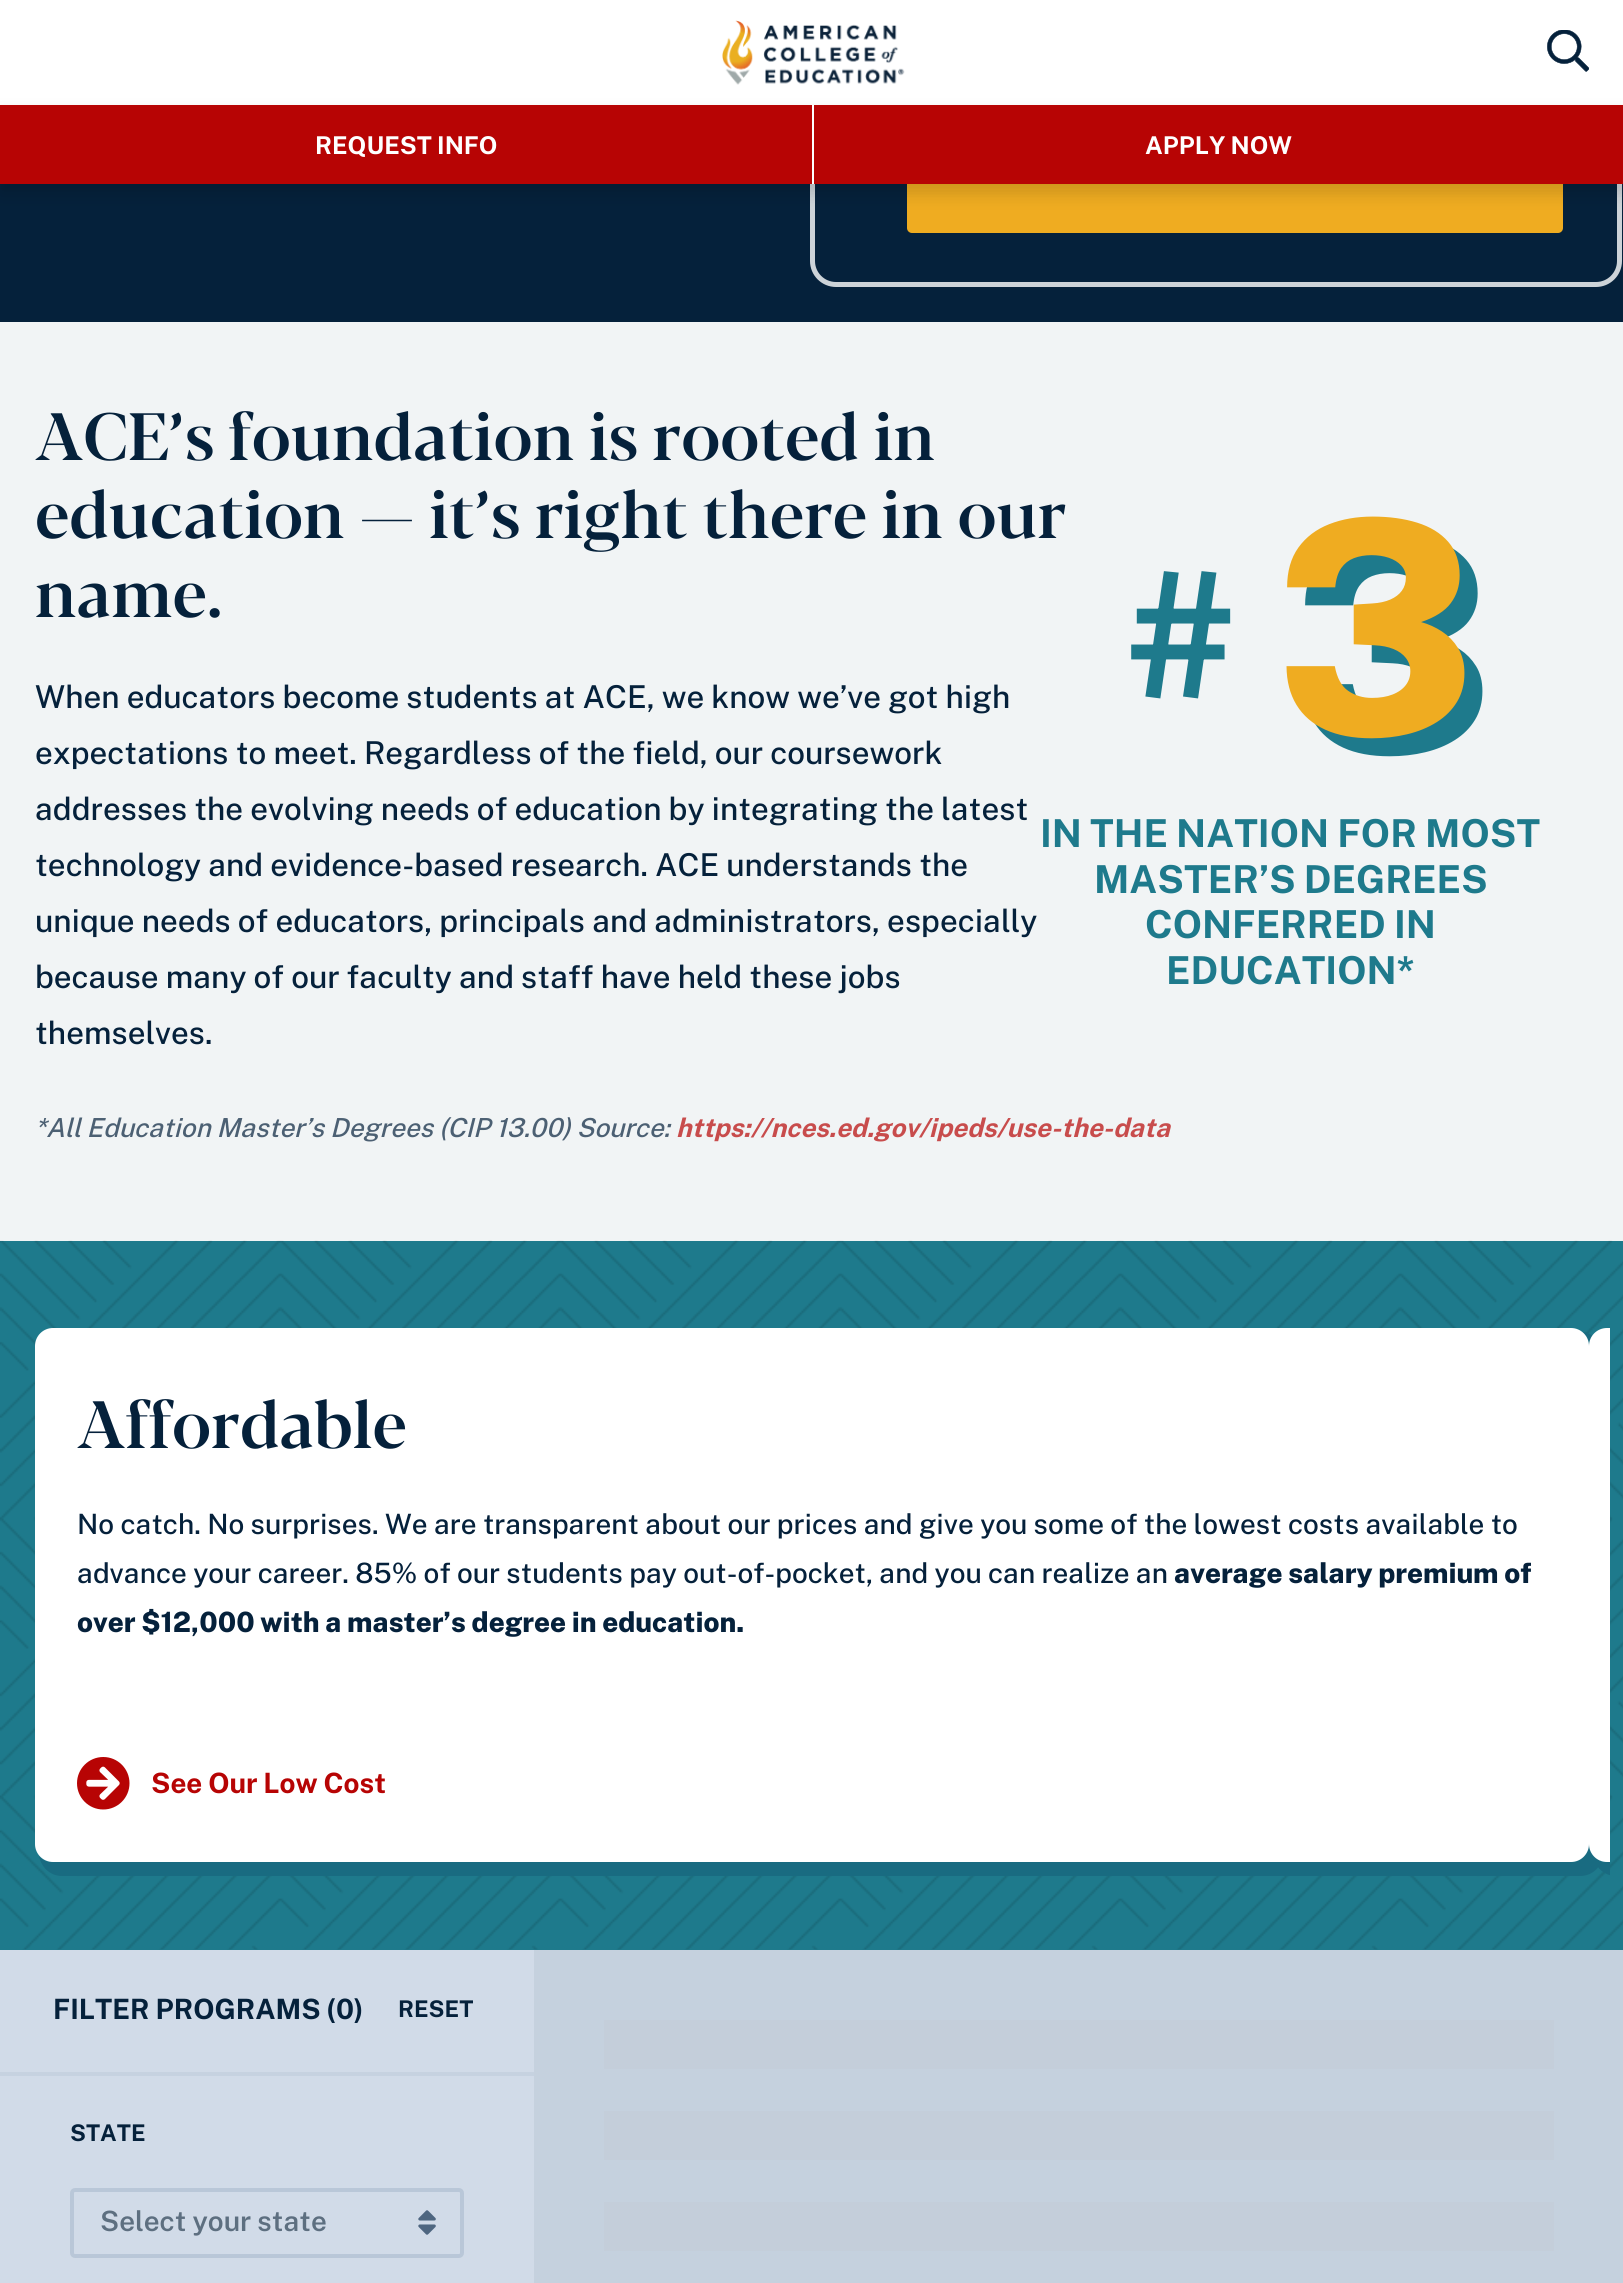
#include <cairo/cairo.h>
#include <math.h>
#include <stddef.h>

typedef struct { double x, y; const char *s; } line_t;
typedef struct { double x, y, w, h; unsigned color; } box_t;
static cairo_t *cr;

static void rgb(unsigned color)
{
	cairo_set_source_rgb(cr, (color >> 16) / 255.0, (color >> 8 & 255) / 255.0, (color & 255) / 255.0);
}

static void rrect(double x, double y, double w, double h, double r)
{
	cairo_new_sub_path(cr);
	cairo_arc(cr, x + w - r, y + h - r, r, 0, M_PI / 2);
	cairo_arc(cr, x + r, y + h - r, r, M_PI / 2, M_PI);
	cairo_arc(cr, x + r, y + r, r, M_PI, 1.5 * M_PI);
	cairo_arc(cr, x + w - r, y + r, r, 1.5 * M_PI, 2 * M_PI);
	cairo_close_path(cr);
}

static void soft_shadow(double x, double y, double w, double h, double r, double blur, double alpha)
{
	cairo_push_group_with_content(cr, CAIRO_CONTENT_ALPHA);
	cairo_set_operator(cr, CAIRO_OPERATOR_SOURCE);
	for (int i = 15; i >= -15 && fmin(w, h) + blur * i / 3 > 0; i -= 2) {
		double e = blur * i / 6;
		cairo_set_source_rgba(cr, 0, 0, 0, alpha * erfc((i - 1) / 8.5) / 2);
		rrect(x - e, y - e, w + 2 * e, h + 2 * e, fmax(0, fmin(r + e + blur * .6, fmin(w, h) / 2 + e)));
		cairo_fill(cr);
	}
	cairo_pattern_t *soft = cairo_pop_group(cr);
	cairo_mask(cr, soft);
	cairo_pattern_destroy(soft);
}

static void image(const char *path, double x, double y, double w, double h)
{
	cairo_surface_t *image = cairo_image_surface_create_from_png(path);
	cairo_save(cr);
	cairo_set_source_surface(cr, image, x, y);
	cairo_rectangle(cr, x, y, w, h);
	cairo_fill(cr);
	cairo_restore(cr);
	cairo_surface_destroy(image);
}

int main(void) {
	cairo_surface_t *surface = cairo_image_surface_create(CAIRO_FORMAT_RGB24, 1623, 2283);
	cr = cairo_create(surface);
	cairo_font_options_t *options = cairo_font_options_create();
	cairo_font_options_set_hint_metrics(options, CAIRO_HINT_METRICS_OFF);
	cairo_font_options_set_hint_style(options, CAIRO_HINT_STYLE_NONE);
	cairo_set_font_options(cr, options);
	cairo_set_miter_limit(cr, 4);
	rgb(0x05213b);
	cairo_paint(cr);
	rrect(812.5, -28.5, 807, 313, 23.5);
	rgb(0xcdd3d8);
	cairo_set_line_width(cr, 5);
	cairo_stroke(cr);
	rgb(0xffffff);
	cairo_rectangle(cr, 0, 0, 1623, 105);
	cairo_fill(cr);
	image("img/1.png", 722, 20, 183, 65);
	image("img/2.png", 1547, 30, 42, 42);
	rgb(0xefac21);
	rrect(907, 128, 656, 105, 5);
	cairo_fill(cr);
	rgb(0x000000);
	soft_shadow(0, 114, 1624, 79, 0, 9, 0.15);
	{
		static const box_t items[] = {
			{0, 105, 812, 79, 0xb70404},
			{812, 105, 2, 79, 0xffffff},
			{814, 105, 809, 79, 0xb70404},
			{0, 322, 1623, 919, 0xf1f4f5},
			{0, 1241, 1623, 709, 0x1e7a8c},
		};
		for (size_t i = 0; i < sizeof items / sizeof *items; i++) {
			rgb(items[i].color);
			cairo_rectangle(cr, items[i].x, items[i].y, items[i].w, items[i].h);
			cairo_fill(cr);
		}
	}
	image("img/3.png", 0, 1240, 1623, 710);
	rgb(0x196b81);
	cairo_new_path(cr);
	cairo_move_to(cr, 39, 1856);
	cairo_curve_to(cr, 41, 1867, 50, 1876, 62, 1876);
	cairo_line_to(cr, 1580, 1876);
	cairo_curve_to(cr, 1593, 1876, 1603, 1866, 1603, 1853);
	cairo_line_to(cr, 1603, 1355);
	cairo_curve_to(cr, 1603, 1343, 1594, 1333, 1582, 1332);
	cairo_curve_to(cr, 1586, 1335, 1589, 1340, 1589, 1346);
	cairo_line_to(cr, 1589, 1844);
	cairo_curve_to(cr, 1589, 1854, 1581, 1862, 1572, 1862);
	cairo_line_to(cr, 52, 1862);
	cairo_curve_to(cr, 47, 1862, 42, 1860, 39, 1856);
	cairo_close_path(cr);
	cairo_fill(cr);
	rgb(0xffffff);
	rrect(35, 1328, 1554, 534, 18);
	cairo_fill(cr);
	image("img/4.png", 77, 1757, 53, 53);
	cairo_save(cr);
	cairo_rectangle(cr, 14, 1311, 1596, 569);
	cairo_clip(cr);
	rgb(0x196b81);
	cairo_new_path(cr);
	cairo_move_to(cr, 1593, 1856);
	cairo_curve_to(cr, 1595, 1867, 1604, 1876, 1616, 1876);
	cairo_line_to(cr, 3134, 1876);
	cairo_curve_to(cr, 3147, 1876, 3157, 1866, 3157, 1853);
	cairo_line_to(cr, 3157, 1355);
	cairo_curve_to(cr, 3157, 1343, 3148, 1333, 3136, 1332);
	cairo_curve_to(cr, 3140, 1335, 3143, 1340, 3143, 1346);
	cairo_line_to(cr, 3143, 1844);
	cairo_curve_to(cr, 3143, 1854, 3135, 1862, 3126, 1862);
	cairo_line_to(cr, 1606, 1862);
	cairo_curve_to(cr, 1601, 1862, 1596, 1860, 1593, 1856);
	cairo_close_path(cr);
	cairo_fill(cr);
	cairo_restore(cr);
	cairo_new_path(cr);
	cairo_move_to(cr, 1607, 1328);
	cairo_line_to(cr, 1610, 1328);
	cairo_line_to(cr, 1610, 1862);
	cairo_line_to(cr, 1607, 1862);
	cairo_curve_to(cr, 1597, 1862, 1589, 1854, 1589, 1844);
	cairo_line_to(cr, 1589, 1346);
	cairo_curve_to(cr, 1589, 1336, 1597, 1328, 1607, 1328);
	cairo_close_path(cr);
	cairo_fill(cr);
	{
		static const box_t items[] = {
			{534, 1950, 1089, 333, 0xc5d1de},
			{0, 1950, 534, 333, 0xffffff},
			{0, 2072, 534, 4, 0xf1f4f5},
		};
		for (size_t i = 0; i < sizeof items / sizeof *items; i++) {
			rgb(items[i].color);
			cairo_rectangle(cr, items[i].x, items[i].y, items[i].w, items[i].h);
			cairo_fill(cr);
		}
	}
	image("img/5.png", 418, 2210, 18, 25);
	rrect(72, 2190, 390, 66, 3);
	rgb(0xe1e7eb);
	cairo_set_line_width(cr, 4);
	cairo_stroke(cr);
	cairo_set_source_rgba(cr, 0.078, 0.263, 0.51, 0.1);
	cairo_rectangle(cr, 0, 1950, 534, 333);
	cairo_fill(cr);
	cairo_rectangle(cr, 0, 1950, 534, 333);
	cairo_fill(cr);
	rgb(0xc4ceda);
	cairo_rectangle(cr, 604, 2020, 950, 49);
	cairo_fill(cr);
	cairo_rectangle(cr, 604, 2111, 950, 49);
	cairo_fill(cr);
	cairo_rectangle(cr, 604, 2202, 950, 49);
	cairo_fill(cr);
	cairo_select_font_face(cr, "Public Sans", CAIRO_FONT_SLANT_NORMAL, CAIRO_FONT_WEIGHT_BOLD);
	cairo_set_font_size(cr, 24.5);
	rgb(0xffffff);
	cairo_move_to(cr, 315, 154);
	cairo_show_text(cr, "REQUEST INFO");
	cairo_move_to(cr, 1145, 154);
	cairo_show_text(cr, "APPLY NOW");
	cairo_select_font_face(cr, "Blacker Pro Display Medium", CAIRO_FONT_SLANT_NORMAL, CAIRO_FONT_WEIGHT_NORMAL);
	cairo_set_font_size(cr, 66.5);
	rgb(0x05213b);
	{
		static const line_t items[] = {
			{35, 460, "ACE’s foundation is rooted in"},
			{35, 538, "education — it’s right there in our"},
			{35, 617, "name."},
		};
		for (size_t i = 0; i < sizeof items / sizeof *items; i++) {
			cairo_move_to(cr, items[i].x, items[i].y);
			cairo_show_text(cr, items[i].s);
		}
	}
	cairo_select_font_face(cr, "Public Sans Medium", CAIRO_FONT_SLANT_NORMAL, CAIRO_FONT_WEIGHT_NORMAL);
	cairo_set_font_size(cr, 31.5);
	{
		static const line_t items[] = {
			{35, 708, "When educators become students at ACE, we know we’ve got high"},
			{35, 764, "expectations to meet. Regardless of the field, our coursework"},
			{35, 820, "addresses the evolving needs of education by integrating the latest"},
			{35, 876, "technology and evidence-based research. ACE understands the"},
			{35, 932, "unique needs of educators, principals and administrators, especially"},
			{35, 988, "because many of our faculty and staff have held these jobs"},
			{35, 1044, "themselves."},
		};
		for (size_t i = 0; i < sizeof items / sizeof *items; i++) {
			cairo_move_to(cr, items[i].x, items[i].y);
			cairo_show_text(cr, items[i].s);
		}
	}
	cairo_select_font_face(cr, "Public Sans ExtraBold", CAIRO_FONT_SLANT_NORMAL, CAIRO_FONT_WEIGHT_NORMAL);
	cairo_set_font_size(cr, 175);
	rgb(0x1e7a8c);
	cairo_move_to(cr, 1127, 698);
	cairo_show_text(cr, "#");
	cairo_set_font_size(cr, 298);
	cairo_move_to(cr, 1292, 753);
	cairo_show_text(cr, "3");
	rgb(0xefac21);
	cairo_move_to(cr, 1274, 735);
	cairo_show_text(cr, "3");
	cairo_select_font_face(cr, "Public Sans", CAIRO_FONT_SLANT_NORMAL, CAIRO_FONT_WEIGHT_BOLD);
	cairo_set_font_size(cr, 38.5);
	rgb(0x1e7a8c);
	{
		static const line_t items[] = {
			{1040, 847, "IN THE NATION FOR MOST"},
			{1094, 893, "MASTER’S DEGREES"},
			{1145, 938, "CONFERRED IN"},
			{1166, 984, "EDUCATION*"},
		};
		for (size_t i = 0; i < sizeof items / sizeof *items; i++) {
			cairo_move_to(cr, items[i].x, items[i].y);
			cairo_show_text(cr, items[i].s);
		}
	}
	cairo_select_font_face(cr, "Public Sans Medium", CAIRO_FONT_SLANT_ITALIC, CAIRO_FONT_WEIGHT_NORMAL);
	cairo_set_font_size(cr, 26.25);
	rgb(0x4c6073);
	cairo_move_to(cr, 35, 1137);
	cairo_show_text(cr, "*All Education Master’s Degrees (CIP 13.00) Source:");
	cairo_select_font_face(cr, "Public Sans", CAIRO_FONT_SLANT_ITALIC, CAIRO_FONT_WEIGHT_BOLD);
	rgb(0xc84c4c);
	cairo_move_to(cr, 676, 1137);
	cairo_show_text(cr, "https://nces.ed.gov/ipeds/use-the-data");
	cairo_select_font_face(cr, "Blacker Pro Display Medium", CAIRO_FONT_SLANT_NORMAL, CAIRO_FONT_WEIGHT_NORMAL);
	cairo_set_font_size(cr, 66.5);
	rgb(0x05213b);
	cairo_move_to(cr, 77, 1448);
	cairo_show_text(cr, "Affordable");
	cairo_select_font_face(cr, "Public Sans Medium", CAIRO_FONT_SLANT_NORMAL, CAIRO_FONT_WEIGHT_NORMAL);
	cairo_set_font_size(cr, 28);
	cairo_move_to(cr, 77, 1534);
	cairo_show_text(cr, "No catch. No surprises. We are transparent about our prices and give you some of the lowest costs available to");
	cairo_move_to(cr, 77, 1583);
	cairo_show_text(cr, "advance your career. 85% of our students pay out-of-pocket, and you can realize an");
	cairo_select_font_face(cr, "Public Sans ExtraBold", CAIRO_FONT_SLANT_NORMAL, CAIRO_FONT_WEIGHT_NORMAL);
	cairo_move_to(cr, 1174, 1583);
	cairo_show_text(cr, "average salary premium of");
	cairo_move_to(cr, 77, 1632);
	cairo_show_text(cr, "over $12,000 with a master’s degree in education.");
	cairo_select_font_face(cr, "Public Sans", CAIRO_FONT_SLANT_NORMAL, CAIRO_FONT_WEIGHT_BOLD);
	rgb(0xb70404);
	cairo_move_to(cr, 151, 1793);
	cairo_show_text(cr, "See Our Low Cost");
	rgb(0x05213b);
	cairo_move_to(cr, 53, 2019);
	cairo_show_text(cr, "FILTER PROGRAMS (0)");
	cairo_set_font_size(cr, 23);
	cairo_move_to(cr, 398, 2017);
	cairo_show_text(cr, "RESET");
	cairo_move_to(cr, 70, 2141);
	cairo_show_text(cr, "STATE");
	cairo_select_font_face(cr, "Public Sans SemiBold", CAIRO_FONT_SLANT_NORMAL, CAIRO_FONT_WEIGHT_NORMAL);
	cairo_set_font_size(cr, 28);
	rgb(0x5d6f80);
	cairo_move_to(cr, 100, 2231);
	cairo_show_text(cr, "Select your state");
	cairo_surface_write_to_png(surface, "page.png");
	cairo_font_options_destroy(options);
	cairo_destroy(cr);
	cairo_surface_destroy(surface);
	return 0;
}
